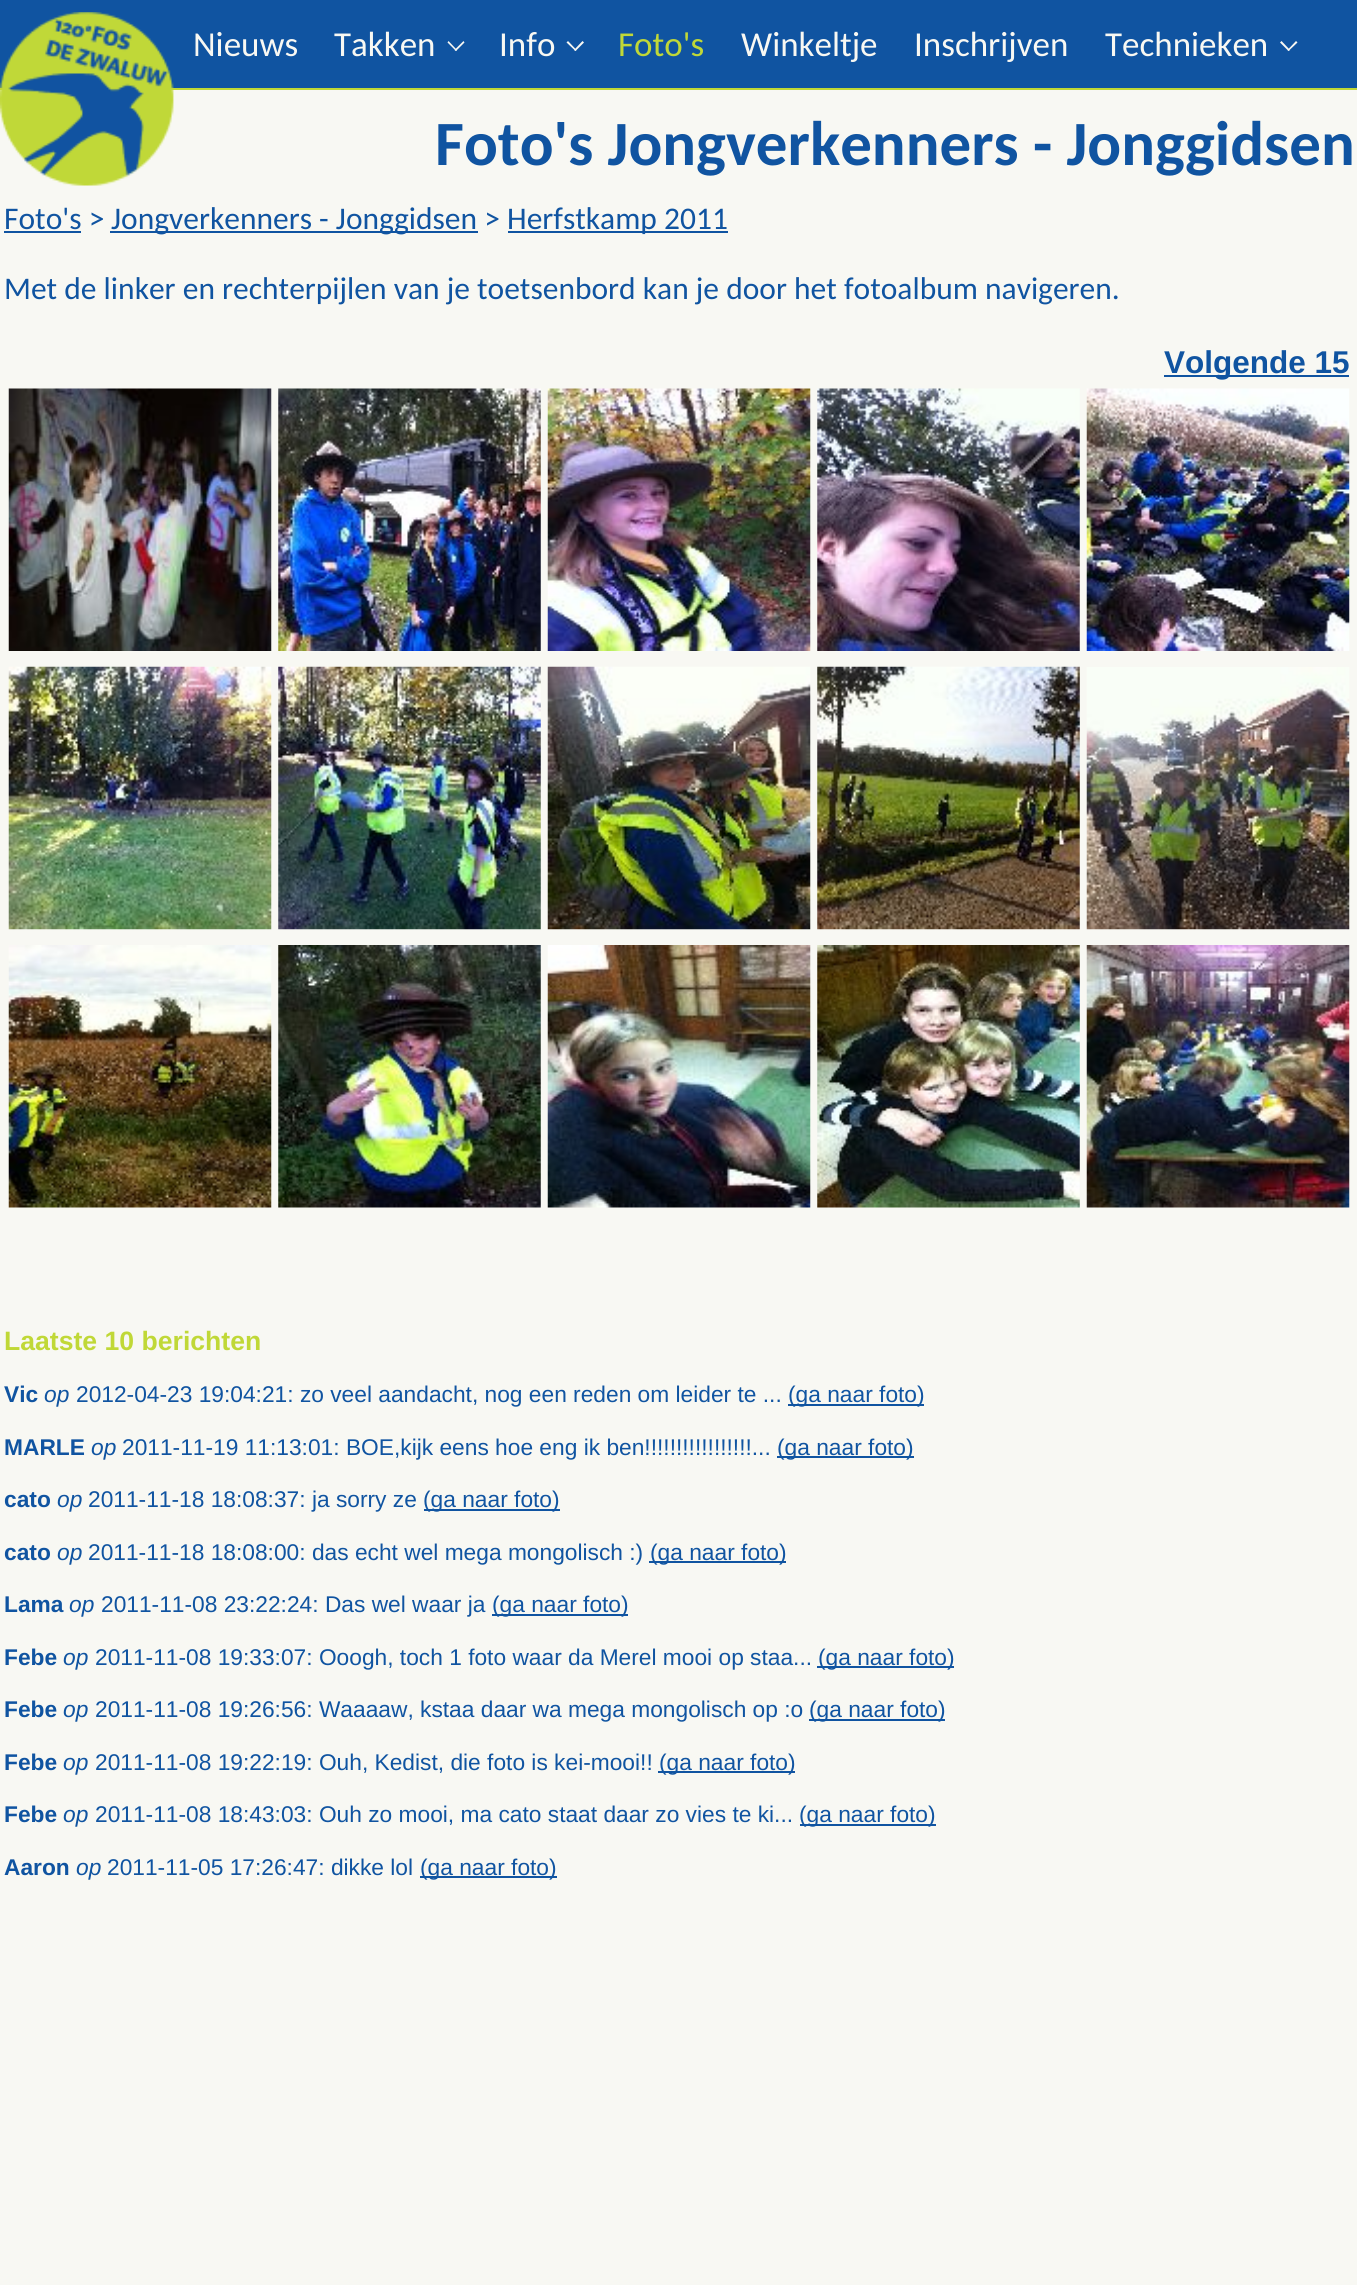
#include <cairo/cairo.h>
#include <math.h>
#include <stddef.h>

typedef struct { double x, y; const char *s; } line_t;
typedef struct { double x, y, w, h; unsigned color; } box_t;
static cairo_t *cr;

static void rgb(unsigned color)
{
	cairo_set_source_rgb(cr, (color >> 16) / 255.0, (color >> 8 & 255) / 255.0, (color & 255) / 255.0);
}

static void image(const char *path, double x, double y, double w, double h)
{
	cairo_surface_t *image = cairo_image_surface_create_from_png(path);
	cairo_save(cr);
	cairo_set_source_surface(cr, image, x, y);
	cairo_rectangle(cr, x, y, w, h);
	cairo_fill(cr);
	cairo_restore(cr);
	cairo_surface_destroy(image);
}

int main(void) {
	cairo_surface_t *surface = cairo_image_surface_create(CAIRO_FORMAT_RGB24, 1357, 2285);
	cr = cairo_create(surface);
	cairo_font_options_t *options = cairo_font_options_create();
	cairo_font_options_set_hint_metrics(options, CAIRO_HINT_METRICS_OFF);
	cairo_font_options_set_hint_style(options, CAIRO_HINT_STYLE_NONE);
	cairo_set_font_options(cr, options);
	cairo_set_miter_limit(cr, 4);
	rgb(0xf8f8f3);
	cairo_paint(cr);
	rgb(0x1054a1);
	cairo_rectangle(cr, 0, 0, 1357, 88);
	cairo_fill(cr);
	rgb(0xc0d837);
	cairo_rectangle(cr, 0, 88, 1357, 2);
	cairo_fill(cr);
	image("img/1.png", 0, 12, 174, 174);
	rgb(0xf8f8f3);
	cairo_new_path(cr);
	cairo_move_to(cr, 463.5, 41);
	cairo_line_to(cr, 464.5, 42.5);
	cairo_line_to(cr, 456, 51);
	cairo_line_to(cr, 454.5, 50);
	cairo_close_path(cr);
	cairo_fill(cr);
	cairo_new_path(cr);
	cairo_move_to(cr, 448.5, 41);
	cairo_line_to(cr, 457, 50);
	cairo_line_to(cr, 456, 51);
	cairo_line_to(cr, 447.5, 42.5);
	cairo_close_path(cr);
	cairo_fill(cr);
	cairo_new_path(cr);
	cairo_move_to(cr, 582.5, 41);
	cairo_line_to(cr, 584, 42.5);
	cairo_line_to(cr, 575.5, 51);
	cairo_line_to(cr, 574, 50);
	cairo_close_path(cr);
	cairo_fill(cr);
	cairo_new_path(cr);
	cairo_move_to(cr, 568, 41);
	cairo_line_to(cr, 576.5, 50);
	cairo_line_to(cr, 575.5, 51);
	cairo_line_to(cr, 566.5, 42.5);
	cairo_close_path(cr);
	cairo_fill(cr);
	cairo_new_path(cr);
	cairo_move_to(cr, 1296, 41);
	cairo_line_to(cr, 1297.5, 42.5);
	cairo_line_to(cr, 1288.5, 51);
	cairo_line_to(cr, 1287.5, 50);
	cairo_close_path(cr);
	cairo_fill(cr);
	cairo_new_path(cr);
	cairo_move_to(cr, 1281.5, 41);
	cairo_line_to(cr, 1290, 50);
	cairo_line_to(cr, 1288.5, 51);
	cairo_line_to(cr, 1280, 42.5);
	cairo_close_path(cr);
	cairo_fill(cr);
	{
		static const box_t items[] = {
			{4, 231, 77, 2, 0x1054a1},
			{110, 231, 368, 2, 0x1054a1},
			{508, 231, 220, 2, 0x1054a1},
			{1164, 375, 185, 2, 0x1054a1},
		};
		for (size_t i = 0; i < sizeof items / sizeof *items; i++) {
			rgb(items[i].color);
			cairo_rectangle(cr, items[i].x, items[i].y, items[i].w, items[i].h);
			cairo_fill(cr);
		}
	}
	image("img/2.png", 8, 388, 264, 263);
	image("img/3.png", 278, 388, 263, 263);
	image("img/4.png", 547, 388, 264, 263);
	image("img/5.png", 817, 388, 263, 263);
	image("img/6.png", 1086, 388, 264, 263);
	image("img/7.png", 8, 666, 264, 264);
	image("img/8.png", 278, 666, 263, 264);
	image("img/9.png", 547, 666, 264, 264);
	image("img/10.png", 817, 666, 263, 264);
	image("img/11.png", 1086, 667, 264, 263);
	image("img/12.png", 8, 945, 264, 263);
	image("img/13.png", 278, 945, 263, 263);
	image("img/14.png", 547, 945, 264, 263);
	image("img/15.png", 817, 945, 263, 263);
	image("img/16.png", 1086, 945, 264, 263);
	{
		static const box_t items[] = {
			{788, 1404, 136, 2, 0x1054a1},
			{777, 1456, 137, 2, 0x1054a1},
			{424, 1509, 136, 2, 0x1054a1},
			{649, 1561, 137, 2, 0x1054a1},
			{492, 1614, 136, 2, 0x1054a1},
			{817, 1666, 137, 2, 0x1054a1},
			{809, 1719, 136, 2, 0x1054a1},
			{658, 1771, 137, 2, 0x1054a1},
			{800, 1824, 136, 2, 0x1054a1},
			{420, 1876, 137, 2, 0x1054a1},
		};
		for (size_t i = 0; i < sizeof items / sizeof *items; i++) {
			rgb(items[i].color);
			cairo_rectangle(cr, items[i].x, items[i].y, items[i].w, items[i].h);
			cairo_fill(cr);
		}
	}
	cairo_select_font_face(cr, "Carlito", CAIRO_FONT_SLANT_NORMAL, CAIRO_FONT_WEIGHT_NORMAL);
	cairo_set_font_size(cr, 35);
	rgb(0xf8f8f3);
	{
		static const line_t items[] = {
			{193, 56, "Nieuws"},
			{334, 56, "Takken"},
			{499, 56, "Info"},
		};
		for (size_t i = 0; i < sizeof items / sizeof *items; i++) {
			cairo_move_to(cr, items[i].x, items[i].y);
			cairo_show_text(cr, items[i].s);
		}
	}
	rgb(0xc0d837);
	cairo_move_to(cr, 618, 56);
	cairo_show_text(cr, "Foto's");
	rgb(0xf8f8f3);
	{
		static const line_t items[] = {
			{741, 56, "Winkeltje"},
			{914, 56, "Inschrijven"},
			{1105, 56, "Technieken"},
		};
		for (size_t i = 0; i < sizeof items / sizeof *items; i++) {
			cairo_move_to(cr, items[i].x, items[i].y);
			cairo_show_text(cr, items[i].s);
		}
	}
	cairo_select_font_face(cr, "Carlito", CAIRO_FONT_SLANT_NORMAL, CAIRO_FONT_WEIGHT_BOLD);
	cairo_set_font_size(cr, 63);
	rgb(0x1054a1);
	cairo_move_to(cr, 435, 165);
	cairo_show_text(cr, "Foto's Jongverkenners - Jonggidsen");
	cairo_select_font_face(cr, "Carlito", CAIRO_FONT_SLANT_NORMAL, CAIRO_FONT_WEIGHT_NORMAL);
	cairo_set_font_size(cr, 31.5);
	{
		static const line_t items[] = {
			{4, 229, "Foto's >"},
			{111, 229, "Jongverkenners - Jonggidsen >"},
			{507, 229, "Herfstkamp 2011"},
			{4, 299, "Met de linker en rechterpijlen van je toetsenbord kan je door het fotoalbum navigeren."},
		};
		for (size_t i = 0; i < sizeof items / sizeof *items; i++) {
			cairo_move_to(cr, items[i].x, items[i].y);
			cairo_show_text(cr, items[i].s);
		}
	}
	cairo_select_font_face(cr, "Liberation Sans", CAIRO_FONT_SLANT_NORMAL, CAIRO_FONT_WEIGHT_BOLD);
	cairo_move_to(cr, 1164, 373);
	cairo_show_text(cr, "Volgende 15");
	cairo_set_font_size(cr, 26.6);
	rgb(0xc0d837);
	cairo_move_to(cr, 4, 1350);
	cairo_show_text(cr, "Laatste 10 berichten");
	cairo_set_font_size(cr, 22.75);
	rgb(0x1054a1);
	cairo_move_to(cr, 4, 1402);
	cairo_show_text(cr, "Vic");
	cairo_select_font_face(cr, "Liberation Sans", CAIRO_FONT_SLANT_ITALIC, CAIRO_FONT_WEIGHT_NORMAL);
	cairo_move_to(cr, 44, 1402);
	cairo_show_text(cr, "op");
	cairo_select_font_face(cr, "Liberation Sans", CAIRO_FONT_SLANT_NORMAL, CAIRO_FONT_WEIGHT_NORMAL);
	cairo_move_to(cr, 76, 1402);
	cairo_show_text(cr, "2012-04-23 19:04:21: zo veel aandacht, nog een reden om leider te ...");
	cairo_move_to(cr, 788, 1402);
	cairo_show_text(cr, "(ga naar foto)");
	cairo_select_font_face(cr, "Liberation Sans", CAIRO_FONT_SLANT_NORMAL, CAIRO_FONT_WEIGHT_BOLD);
	cairo_move_to(cr, 4, 1455);
	cairo_show_text(cr, "MARLE");
	cairo_select_font_face(cr, "Liberation Sans", CAIRO_FONT_SLANT_ITALIC, CAIRO_FONT_WEIGHT_NORMAL);
	cairo_move_to(cr, 91, 1455);
	cairo_show_text(cr, "op");
	cairo_select_font_face(cr, "Liberation Sans", CAIRO_FONT_SLANT_NORMAL, CAIRO_FONT_WEIGHT_NORMAL);
	cairo_move_to(cr, 122, 1455);
	cairo_show_text(cr, "2011-11-19 11:13:01: BOE,kijk eens hoe eng ik ben!!!!!!!!!!!!!!!!!...");
	cairo_move_to(cr, 777, 1455);
	cairo_show_text(cr, "(ga naar foto)");
	cairo_select_font_face(cr, "Liberation Sans", CAIRO_FONT_SLANT_NORMAL, CAIRO_FONT_WEIGHT_BOLD);
	cairo_move_to(cr, 4, 1507);
	cairo_show_text(cr, "cato");
	cairo_select_font_face(cr, "Liberation Sans", CAIRO_FONT_SLANT_ITALIC, CAIRO_FONT_WEIGHT_NORMAL);
	cairo_move_to(cr, 57, 1507);
	cairo_show_text(cr, "op");
	cairo_select_font_face(cr, "Liberation Sans", CAIRO_FONT_SLANT_NORMAL, CAIRO_FONT_WEIGHT_NORMAL);
	cairo_move_to(cr, 88, 1507);
	cairo_show_text(cr, "2011-11-18 18:08:37: ja sorry ze");
	cairo_move_to(cr, 423, 1507);
	cairo_show_text(cr, "(ga naar foto)");
	cairo_select_font_face(cr, "Liberation Sans", CAIRO_FONT_SLANT_NORMAL, CAIRO_FONT_WEIGHT_BOLD);
	cairo_move_to(cr, 4, 1560);
	cairo_show_text(cr, "cato");
	cairo_select_font_face(cr, "Liberation Sans", CAIRO_FONT_SLANT_ITALIC, CAIRO_FONT_WEIGHT_NORMAL);
	cairo_move_to(cr, 57, 1560);
	cairo_show_text(cr, "op");
	cairo_select_font_face(cr, "Liberation Sans", CAIRO_FONT_SLANT_NORMAL, CAIRO_FONT_WEIGHT_NORMAL);
	cairo_move_to(cr, 88, 1560);
	cairo_show_text(cr, "2011-11-18 18:08:00: das echt wel mega mongolisch :)");
	cairo_move_to(cr, 650, 1560);
	cairo_show_text(cr, "(ga naar foto)");
	cairo_select_font_face(cr, "Liberation Sans", CAIRO_FONT_SLANT_NORMAL, CAIRO_FONT_WEIGHT_BOLD);
	cairo_move_to(cr, 4, 1612);
	cairo_show_text(cr, "Lama");
	cairo_select_font_face(cr, "Liberation Sans", CAIRO_FONT_SLANT_ITALIC, CAIRO_FONT_WEIGHT_NORMAL);
	cairo_move_to(cr, 69, 1612);
	cairo_show_text(cr, "op");
	cairo_select_font_face(cr, "Liberation Sans", CAIRO_FONT_SLANT_NORMAL, CAIRO_FONT_WEIGHT_NORMAL);
	cairo_move_to(cr, 101, 1612);
	cairo_show_text(cr, "2011-11-08 23:22:24: Das wel waar ja");
	cairo_move_to(cr, 492, 1612);
	cairo_show_text(cr, "(ga naar foto)");
	cairo_select_font_face(cr, "Liberation Sans", CAIRO_FONT_SLANT_NORMAL, CAIRO_FONT_WEIGHT_BOLD);
	cairo_move_to(cr, 4, 1665);
	cairo_show_text(cr, "Febe");
	cairo_select_font_face(cr, "Liberation Sans", CAIRO_FONT_SLANT_ITALIC, CAIRO_FONT_WEIGHT_NORMAL);
	cairo_move_to(cr, 63, 1665);
	cairo_show_text(cr, "op");
	cairo_select_font_face(cr, "Liberation Sans", CAIRO_FONT_SLANT_NORMAL, CAIRO_FONT_WEIGHT_NORMAL);
	cairo_move_to(cr, 95, 1665);
	cairo_show_text(cr, "2011-11-08 19:33:07: Ooogh, toch 1 foto waar da Merel mooi op staa...");
	cairo_move_to(cr, 818, 1665);
	cairo_show_text(cr, "(ga naar foto)");
	cairo_select_font_face(cr, "Liberation Sans", CAIRO_FONT_SLANT_NORMAL, CAIRO_FONT_WEIGHT_BOLD);
	cairo_move_to(cr, 4, 1717);
	cairo_show_text(cr, "Febe");
	cairo_select_font_face(cr, "Liberation Sans", CAIRO_FONT_SLANT_ITALIC, CAIRO_FONT_WEIGHT_NORMAL);
	cairo_move_to(cr, 63, 1717);
	cairo_show_text(cr, "op");
	cairo_select_font_face(cr, "Liberation Sans", CAIRO_FONT_SLANT_NORMAL, CAIRO_FONT_WEIGHT_NORMAL);
	cairo_move_to(cr, 95, 1717);
	cairo_show_text(cr, "2011-11-08 19:26:56: Waaaaw, kstaa daar wa mega mongolisch op :o");
	cairo_move_to(cr, 809, 1717);
	cairo_show_text(cr, "(ga naar foto)");
	cairo_select_font_face(cr, "Liberation Sans", CAIRO_FONT_SLANT_NORMAL, CAIRO_FONT_WEIGHT_BOLD);
	cairo_move_to(cr, 4, 1770);
	cairo_show_text(cr, "Febe");
	cairo_select_font_face(cr, "Liberation Sans", CAIRO_FONT_SLANT_ITALIC, CAIRO_FONT_WEIGHT_NORMAL);
	cairo_move_to(cr, 63, 1770);
	cairo_show_text(cr, "op");
	cairo_select_font_face(cr, "Liberation Sans", CAIRO_FONT_SLANT_NORMAL, CAIRO_FONT_WEIGHT_NORMAL);
	cairo_move_to(cr, 95, 1770);
	cairo_show_text(cr, "2011-11-08 19:22:19: Ouh, Kedist, die foto is kei-mooi!!");
	cairo_move_to(cr, 659, 1770);
	cairo_show_text(cr, "(ga naar foto)");
	cairo_select_font_face(cr, "Liberation Sans", CAIRO_FONT_SLANT_NORMAL, CAIRO_FONT_WEIGHT_BOLD);
	cairo_move_to(cr, 4, 1822);
	cairo_show_text(cr, "Febe");
	cairo_select_font_face(cr, "Liberation Sans", CAIRO_FONT_SLANT_ITALIC, CAIRO_FONT_WEIGHT_NORMAL);
	cairo_move_to(cr, 63, 1822);
	cairo_show_text(cr, "op");
	cairo_select_font_face(cr, "Liberation Sans", CAIRO_FONT_SLANT_NORMAL, CAIRO_FONT_WEIGHT_NORMAL);
	cairo_move_to(cr, 95, 1822);
	cairo_show_text(cr, "2011-11-08 18:43:03: Ouh zo mooi, ma cato staat daar zo vies te ki...");
	cairo_move_to(cr, 799, 1822);
	cairo_show_text(cr, "(ga naar foto)");
	cairo_select_font_face(cr, "Liberation Sans", CAIRO_FONT_SLANT_NORMAL, CAIRO_FONT_WEIGHT_BOLD);
	cairo_move_to(cr, 4, 1875);
	cairo_show_text(cr, "Aaron");
	cairo_select_font_face(cr, "Liberation Sans", CAIRO_FONT_SLANT_ITALIC, CAIRO_FONT_WEIGHT_NORMAL);
	cairo_move_to(cr, 76, 1875);
	cairo_show_text(cr, "op");
	cairo_select_font_face(cr, "Liberation Sans", CAIRO_FONT_SLANT_NORMAL, CAIRO_FONT_WEIGHT_NORMAL);
	cairo_move_to(cr, 107, 1875);
	cairo_show_text(cr, "2011-11-05 17:26:47: dikke lol");
	cairo_move_to(cr, 420, 1875);
	cairo_show_text(cr, "(ga naar foto)");
	cairo_surface_write_to_png(surface, "page.png");
	cairo_font_options_destroy(options);
	cairo_destroy(cr);
	cairo_surface_destroy(surface);
	return 0;
}
